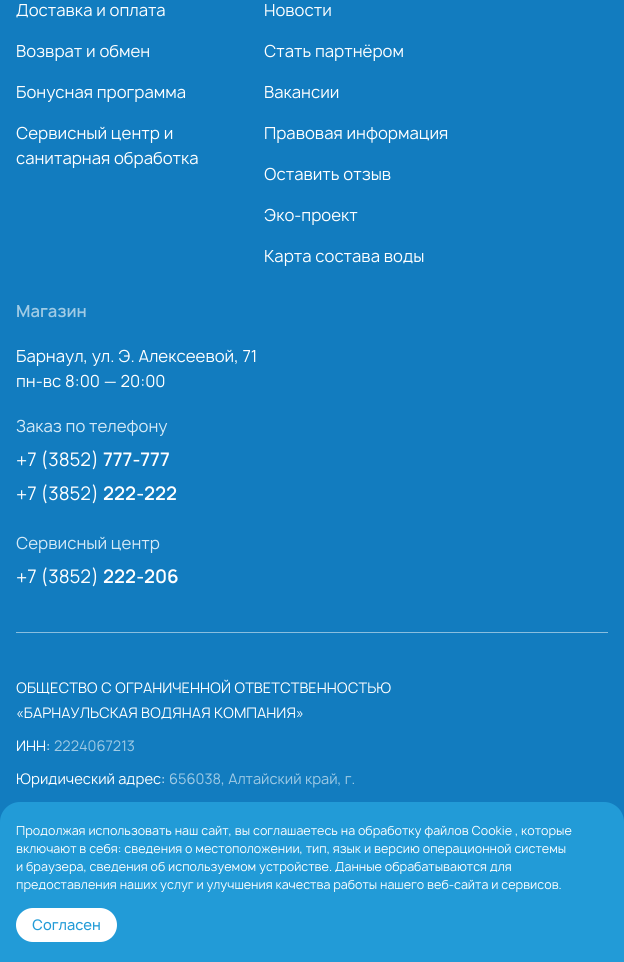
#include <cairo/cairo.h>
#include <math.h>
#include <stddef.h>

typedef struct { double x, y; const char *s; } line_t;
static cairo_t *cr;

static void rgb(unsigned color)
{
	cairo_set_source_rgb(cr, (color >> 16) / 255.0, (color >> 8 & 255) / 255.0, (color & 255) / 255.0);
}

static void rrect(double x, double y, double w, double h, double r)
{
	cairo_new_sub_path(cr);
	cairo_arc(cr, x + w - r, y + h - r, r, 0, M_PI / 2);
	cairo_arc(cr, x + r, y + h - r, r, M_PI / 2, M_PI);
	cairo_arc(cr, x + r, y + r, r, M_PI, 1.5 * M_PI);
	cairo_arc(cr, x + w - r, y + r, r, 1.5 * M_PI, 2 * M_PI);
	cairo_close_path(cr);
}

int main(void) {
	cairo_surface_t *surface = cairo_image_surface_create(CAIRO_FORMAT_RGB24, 624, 962);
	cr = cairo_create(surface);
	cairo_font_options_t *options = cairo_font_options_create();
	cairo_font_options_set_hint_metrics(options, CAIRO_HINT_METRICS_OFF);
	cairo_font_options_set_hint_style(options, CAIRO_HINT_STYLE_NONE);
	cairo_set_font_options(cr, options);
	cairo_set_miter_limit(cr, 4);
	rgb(0x127cbf);
	cairo_paint(cr);
	rgb(0x89bedf);
	cairo_rectangle(cr, 16, 632, 592, 1);
	cairo_fill(cr);
	rgb(0x229bd7);
	cairo_new_path(cr);
	cairo_move_to(cr, 20, 802);
	cairo_line_to(cr, 604, 802);
	cairo_curve_to(cr, 615, 802, 624, 811, 624, 822);
	cairo_line_to(cr, 624, 962);
	cairo_line_to(cr, 0, 962);
	cairo_line_to(cr, 0, 822);
	cairo_curve_to(cr, 0, 811, 9, 802, 20, 802);
	cairo_close_path(cr);
	cairo_fill(cr);
	rgb(0xffffff);
	rrect(16, 908, 101, 34, 17);
	cairo_fill(cr);
	cairo_select_font_face(cr, "Manrope", CAIRO_FONT_SLANT_NORMAL, CAIRO_FONT_WEIGHT_NORMAL);
	cairo_set_font_size(cr, 16);
	{
		static const line_t items[] = {
			{16, 16, "Доставка и оплата"},
			{16, 57, "Возврат и обмен"},
			{16, 98, "Бонусная программа"},
			{16, 139, "Сервисный центр и"},
			{16, 164, "санитарная обработка"},
			{264, 16, "Новости"},
			{264, 57, "Стать партнёром"},
			{264, 98, "Вакансии"},
			{264, 139, "Правовая информация"},
			{264, 180, "Оставить отзыв"},
			{264, 221, "Эко-проект"},
			{264, 262, "Карта состава воды"},
		};
		for (size_t i = 0; i < sizeof items / sizeof *items; i++) {
			cairo_move_to(cr, items[i].x, items[i].y);
			cairo_show_text(cr, items[i].s);
		}
	}
	cairo_select_font_face(cr, "Manrope SemiBold", CAIRO_FONT_SLANT_NORMAL, CAIRO_FONT_WEIGHT_NORMAL);
	rgb(0xa0cbe5);
	cairo_move_to(cr, 16, 317);
	cairo_show_text(cr, "Магазин");
	cairo_select_font_face(cr, "Manrope", CAIRO_FONT_SLANT_NORMAL, CAIRO_FONT_WEIGHT_NORMAL);
	rgb(0xffffff);
	cairo_move_to(cr, 16, 362);
	cairo_show_text(cr, "Барнаул, ул. Э. Алексеевой, 71");
	cairo_move_to(cr, 16, 387);
	cairo_show_text(cr, "пн-вс 8:00 — 20:00");
	rgb(0xd6eaf7);
	cairo_move_to(cr, 16, 432);
	cairo_show_text(cr, "Заказ по телефону");
	cairo_set_font_size(cr, 18);
	rgb(0xffffff);
	cairo_move_to(cr, 16, 466);
	cairo_show_text(cr, "+7 (3852)");
	cairo_select_font_face(cr, "Manrope SemiBold", CAIRO_FONT_SLANT_NORMAL, CAIRO_FONT_WEIGHT_NORMAL);
	cairo_move_to(cr, 103, 466);
	cairo_show_text(cr, "777-777");
	cairo_select_font_face(cr, "Manrope", CAIRO_FONT_SLANT_NORMAL, CAIRO_FONT_WEIGHT_NORMAL);
	cairo_move_to(cr, 16, 500);
	cairo_show_text(cr, "+7 (3852)");
	cairo_select_font_face(cr, "Manrope SemiBold", CAIRO_FONT_SLANT_NORMAL, CAIRO_FONT_WEIGHT_NORMAL);
	cairo_move_to(cr, 103, 500);
	cairo_show_text(cr, "222-222");
	cairo_select_font_face(cr, "Manrope", CAIRO_FONT_SLANT_NORMAL, CAIRO_FONT_WEIGHT_NORMAL);
	cairo_set_font_size(cr, 16);
	rgb(0xd6eaf7);
	cairo_move_to(cr, 16, 549);
	cairo_show_text(cr, "Сервисный центр");
	cairo_set_font_size(cr, 18);
	rgb(0xffffff);
	cairo_move_to(cr, 16, 583);
	cairo_show_text(cr, "+7 (3852)");
	cairo_select_font_face(cr, "Manrope SemiBold", CAIRO_FONT_SLANT_NORMAL, CAIRO_FONT_WEIGHT_NORMAL);
	cairo_move_to(cr, 103, 583);
	cairo_show_text(cr, "222-206");
	cairo_select_font_face(cr, "Manrope", CAIRO_FONT_SLANT_NORMAL, CAIRO_FONT_WEIGHT_NORMAL);
	cairo_set_font_size(cr, 14);
	{
		static const line_t items[] = {
			{16, 693, "ОБЩЕСТВО С ОГРАНИЧЕННОЙ ОТВЕТСТВЕННОСТЬЮ"},
			{16, 718, "«БАРНАУЛЬСКАЯ ВОДЯНАЯ КОМПАНИЯ»"},
			{16, 751, "ИНН:"},
		};
		for (size_t i = 0; i < sizeof items / sizeof *items; i++) {
			cairo_move_to(cr, items[i].x, items[i].y);
			cairo_show_text(cr, items[i].s);
		}
	}
	rgb(0xa0cbe5);
	cairo_move_to(cr, 54, 751);
	cairo_show_text(cr, "2224067213");
	rgb(0xffffff);
	cairo_move_to(cr, 16, 784);
	cairo_show_text(cr, "Юридический адрес:");
	rgb(0xa0cbe5);
	cairo_move_to(cr, 169, 784);
	cairo_show_text(cr, "656038, Алтайский край, г.");
	cairo_set_font_size(cr, 12);
	rgb(0xffffff);
	{
		static const line_t items[] = {
			{16, 835, "Продолжая использовать наш сайт, вы соглашаетесь на обработку файлов Cookie , которые"},
			{16, 853, "включают в себя: сведения о местоположении, тип, язык и версию операционной системы"},
			{16, 871, "и браузера, сведения об используемом устройстве. Данные обрабатываются для"},
			{16, 889, "предоставления наших услуг и улучшения качества работы нашего веб-сайта и сервисов."},
		};
		for (size_t i = 0; i < sizeof items / sizeof *items; i++) {
			cairo_move_to(cr, items[i].x, items[i].y);
			cairo_show_text(cr, items[i].s);
		}
	}
	cairo_select_font_face(cr, "Manrope Medium", CAIRO_FONT_SLANT_NORMAL, CAIRO_FONT_WEIGHT_NORMAL);
	cairo_set_font_size(cr, 14);
	rgb(0x229bd7);
	cairo_move_to(cr, 32, 930);
	cairo_show_text(cr, "Согласен");
	cairo_surface_write_to_png(surface, "page.png");
	cairo_font_options_destroy(options);
	cairo_destroy(cr);
	cairo_surface_destroy(surface);
	return 0;
}
